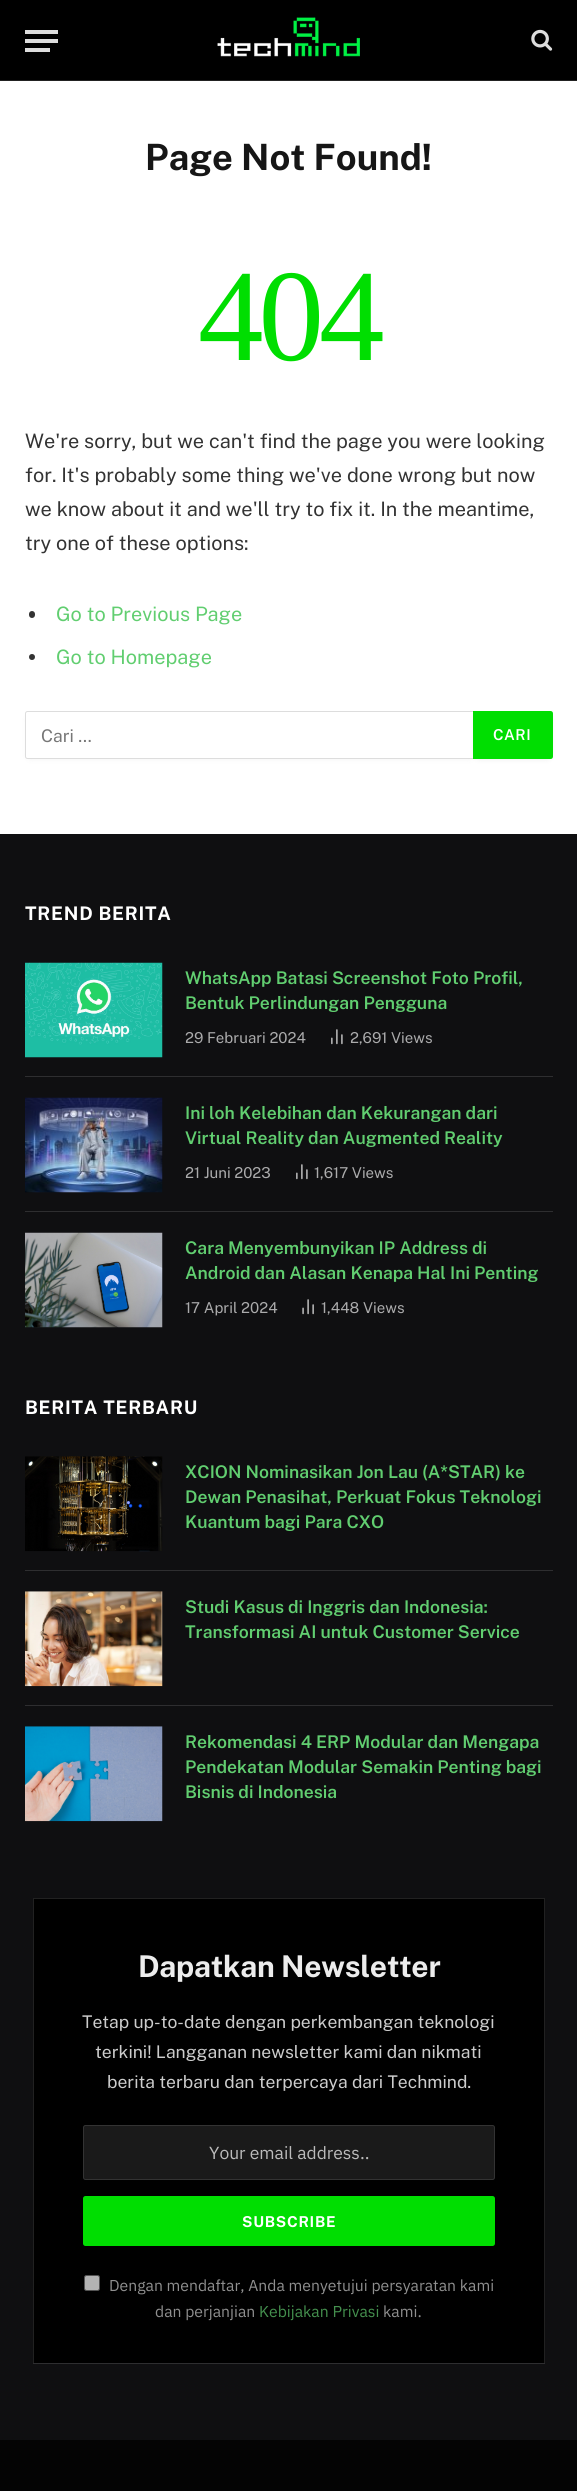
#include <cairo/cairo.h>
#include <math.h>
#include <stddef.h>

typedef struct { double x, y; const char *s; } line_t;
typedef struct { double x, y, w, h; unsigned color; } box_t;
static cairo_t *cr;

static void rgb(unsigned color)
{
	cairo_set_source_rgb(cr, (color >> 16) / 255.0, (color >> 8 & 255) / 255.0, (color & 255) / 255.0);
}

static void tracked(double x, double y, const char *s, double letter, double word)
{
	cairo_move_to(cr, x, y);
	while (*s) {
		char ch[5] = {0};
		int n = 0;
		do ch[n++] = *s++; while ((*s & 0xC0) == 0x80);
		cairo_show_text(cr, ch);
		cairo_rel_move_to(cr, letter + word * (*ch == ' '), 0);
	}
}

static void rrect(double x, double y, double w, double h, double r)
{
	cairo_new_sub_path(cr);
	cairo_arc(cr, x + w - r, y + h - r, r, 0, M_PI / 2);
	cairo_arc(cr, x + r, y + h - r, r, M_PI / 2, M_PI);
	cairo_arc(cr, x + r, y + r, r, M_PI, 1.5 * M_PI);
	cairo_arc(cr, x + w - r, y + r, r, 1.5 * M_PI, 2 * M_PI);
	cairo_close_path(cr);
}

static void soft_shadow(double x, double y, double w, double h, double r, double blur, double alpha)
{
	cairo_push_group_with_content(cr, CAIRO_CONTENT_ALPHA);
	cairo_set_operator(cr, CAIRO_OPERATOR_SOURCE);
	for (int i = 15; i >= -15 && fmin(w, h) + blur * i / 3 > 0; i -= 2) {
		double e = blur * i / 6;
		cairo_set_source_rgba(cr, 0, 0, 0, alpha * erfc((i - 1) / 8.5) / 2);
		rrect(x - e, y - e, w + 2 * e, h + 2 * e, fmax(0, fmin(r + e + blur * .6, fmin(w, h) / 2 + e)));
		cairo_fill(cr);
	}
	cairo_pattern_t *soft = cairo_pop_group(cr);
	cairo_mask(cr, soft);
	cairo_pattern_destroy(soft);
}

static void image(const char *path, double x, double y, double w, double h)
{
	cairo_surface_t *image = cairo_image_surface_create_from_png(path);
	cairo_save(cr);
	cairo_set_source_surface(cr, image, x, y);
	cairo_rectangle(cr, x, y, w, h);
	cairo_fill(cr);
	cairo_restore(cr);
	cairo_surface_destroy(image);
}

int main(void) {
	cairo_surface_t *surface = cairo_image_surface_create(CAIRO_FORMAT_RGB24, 577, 2491);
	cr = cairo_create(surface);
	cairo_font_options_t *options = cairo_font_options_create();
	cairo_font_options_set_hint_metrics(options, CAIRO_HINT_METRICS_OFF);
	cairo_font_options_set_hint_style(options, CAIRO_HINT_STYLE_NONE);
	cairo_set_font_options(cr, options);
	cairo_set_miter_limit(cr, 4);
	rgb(0xffffff);
	cairo_paint(cr);
	{
		static const box_t items[] = {
			{0, 0, 577, 80, 0x000000},
			{0, 80, 577, 1, 0x222222},
			{25, 48, 25, 4, 0xdddddd},
			{25, 30, 33, 4, 0xdddddd},
			{25, 39, 33, 4, 0xdddddd},
		};
		for (size_t i = 0; i < sizeof items / sizeof *items; i++) {
			rgb(items[i].color);
			cairo_rectangle(cr, items[i].x, items[i].y, items[i].w, items[i].h);
			cairo_fill(cr);
		}
	}
	image("img/1.png", 217, 17, 143, 40);
	image("img/2.png", 531, 29, 22, 22);
	rgb(0x333333);
	rrect(29, 611, 6, 7, 3);
	cairo_fill(cr);
	cairo_arc(cr, 32, 657, 3, 0, 2 * M_PI);
	cairo_fill(cr);
	rgb(0x000000);
	soft_shadow(30, 719, 440, 37, 0, 4.5, 0.1);
	rgb(0xffffff);
	rrect(25.5, 711.5, 449, 47, 2);
	cairo_fill_preserve(cr);
	rgb(0xdddddd);
	cairo_set_line_width(cr, 1);
	cairo_stroke(cr);
	rgb(0x000000);
	soft_shadow(478, 719, 70, 37, 0, 4.5, 0.16);
	rgb(0x00de01);
	cairo_new_path(cr);
	cairo_move_to(cr, 473, 711);
	cairo_line_to(cr, 550.5, 711);
	cairo_curve_to(cr, 552, 711, 553, 712, 553, 713.5);
	cairo_line_to(cr, 553, 756.5);
	cairo_curve_to(cr, 553, 758, 552, 759, 550.5, 759);
	cairo_line_to(cr, 473, 759);
	cairo_close_path(cr);
	cairo_fill(cr);
	rgb(0x0f0f11);
	cairo_rectangle(cr, 0, 834, 577, 1606);
	cairo_fill(cr);
	image("img/3.png", 25, 962, 138, 96);
	image("img/4.png", 331, 1029, 12, 16);
	rgb(0x2e2e30);
	cairo_rectangle(cr, 25, 1076, 528, 1);
	cairo_fill(cr);
	image("img/5.png", 25, 1097, 138, 96);
	image("img/4.png", 296, 1164, 12, 16);
	cairo_rectangle(cr, 25, 1211, 528, 1);
	cairo_fill(cr);
	image("img/6.png", 25, 1232, 138, 96);
	image("img/7.png", 302, 1299, 12, 16);
	image("img/8.png", 25, 1456, 138, 96);
	cairo_rectangle(cr, 25, 1570, 528, 1);
	cairo_fill(cr);
	image("img/9.png", 25, 1591, 138, 96);
	cairo_rectangle(cr, 25, 1705, 528, 1);
	cairo_fill(cr);
	image("img/10.png", 25, 1726, 138, 96);
	rgb(0x000000);
	cairo_rectangle(cr, 33, 1898, 512, 465);
	cairo_fill(cr);
	cairo_rectangle(cr, 33.5, 1898.5, 511, 465);
	cairo_set_source_rgba(cr, 1, 1, 1, 0.13);
	cairo_stroke(cr);
	rgb(0x1a1a1a);
	rrect(83.5, 2125.5, 411, 54, 2);
	cairo_fill_preserve(cr);
	rgb(0x333333);
	cairo_stroke(cr);
	rgb(0x00de01);
	rrect(83, 2196, 412, 50, 2.5);
	cairo_fill(cr);
	rgb(0xb3b3b3);
	rrect(84.5, 2275.5, 15, 15, 2);
	cairo_fill_preserve(cr);
	rgb(0x535353);
	cairo_stroke(cr);
	rgb(0x040404);
	cairo_rectangle(cr, 0, 2440, 577, 51);
	cairo_fill(cr);
	cairo_select_font_face(cr, "Public Sans", CAIRO_FONT_SLANT_NORMAL, CAIRO_FONT_WEIGHT_BOLD);
	cairo_set_font_size(cr, 36.25);
	rgb(0x161616);
	cairo_move_to(cr, 145, 170);
	cairo_show_text(cr, "Page Not Found!");
	cairo_select_font_face(cr, "Liberation Serif", CAIRO_FONT_SLANT_NORMAL, CAIRO_FONT_WEIGHT_NORMAL);
	cairo_set_font_size(cr, 131);
	rgb(0x00de01);
	tracked(198, 360, "404", -5, 0);
	cairo_select_font_face(cr, "Public Sans", CAIRO_FONT_SLANT_NORMAL, CAIRO_FONT_WEIGHT_NORMAL);
	cairo_set_font_size(cr, 19.9);
	rgb(0x333333);
	{
		static const line_t items[] = {
			{25, 448, "We're sorry, but we can't find the page you were looking"},
			{25, 482, "for. It's probably some thing we've done wrong but now"},
			{25, 516, "we know about it and we'll try to fix it. In the meantime,"},
			{25, 550, "try one of these options:"},
		};
		for (size_t i = 0; i < sizeof items / sizeof *items; i++) {
			cairo_move_to(cr, items[i].x, items[i].y);
			cairo_show_text(cr, items[i].s);
		}
	}
	rgb(0x61ce70);
	cairo_move_to(cr, 56, 621);
	cairo_show_text(cr, "Go to Previous Page");
	cairo_move_to(cr, 56, 664);
	cairo_show_text(cr, "Go to Homepage");
	cairo_set_font_size(cr, 17.5);
	rgb(0x777777);
	cairo_move_to(cr, 41, 742);
	cairo_show_text(cr, "Cari …");
	cairo_select_font_face(cr, "Public Sans SemiBold", CAIRO_FONT_SLANT_NORMAL, CAIRO_FONT_WEIGHT_NORMAL);
	cairo_set_font_size(cr, 15);
	rgb(0xffffff);
	tracked(493, 740, "CARI", 0.5, 0);
	cairo_select_font_face(cr, "Public Sans", CAIRO_FONT_SLANT_NORMAL, CAIRO_FONT_WEIGHT_BOLD);
	cairo_set_font_size(cr, 18.75);
	tracked(25, 920, "TREND BERITA", 0.75, 0);
	cairo_select_font_face(cr, "Public Sans SemiBold", CAIRO_FONT_SLANT_NORMAL, CAIRO_FONT_WEIGHT_NORMAL);
	cairo_set_font_size(cr, 17.5);
	rgb(0x61ce70);
	cairo_move_to(cr, 185, 984);
	cairo_show_text(cr, "WhatsApp Batasi Screenshot Foto Profil,");
	cairo_move_to(cr, 185, 1009);
	cairo_show_text(cr, "Bentuk Perlindungan Pengguna");
	cairo_select_font_face(cr, "Public Sans", CAIRO_FONT_SLANT_NORMAL, CAIRO_FONT_WEIGHT_NORMAL);
	cairo_set_font_size(cr, 15);
	rgb(0xababac);
	cairo_move_to(cr, 185, 1043);
	cairo_show_text(cr, "29 Februari 2024");
	cairo_move_to(cr, 350, 1043);
	cairo_show_text(cr, "2,691 Views");
	cairo_select_font_face(cr, "Public Sans SemiBold", CAIRO_FONT_SLANT_NORMAL, CAIRO_FONT_WEIGHT_NORMAL);
	cairo_set_font_size(cr, 17.5);
	rgb(0x61ce70);
	cairo_move_to(cr, 185, 1119);
	cairo_show_text(cr, "Ini loh Kelebihan dan Kekurangan dari");
	cairo_move_to(cr, 185, 1144);
	cairo_show_text(cr, "Virtual Reality dan Augmented Reality");
	cairo_select_font_face(cr, "Public Sans", CAIRO_FONT_SLANT_NORMAL, CAIRO_FONT_WEIGHT_NORMAL);
	cairo_set_font_size(cr, 15);
	rgb(0xababac);
	cairo_move_to(cr, 185, 1178);
	cairo_show_text(cr, "21 Juni 2023");
	cairo_move_to(cr, 314, 1178);
	cairo_show_text(cr, "1,617 Views");
	cairo_select_font_face(cr, "Public Sans SemiBold", CAIRO_FONT_SLANT_NORMAL, CAIRO_FONT_WEIGHT_NORMAL);
	cairo_set_font_size(cr, 17.5);
	rgb(0x61ce70);
	cairo_move_to(cr, 185, 1254);
	cairo_show_text(cr, "Cara Menyembunyikan IP Address di");
	cairo_move_to(cr, 185, 1279);
	cairo_show_text(cr, "Android dan Alasan Kenapa Hal Ini Penting");
	cairo_select_font_face(cr, "Public Sans", CAIRO_FONT_SLANT_NORMAL, CAIRO_FONT_WEIGHT_NORMAL);
	cairo_set_font_size(cr, 15);
	rgb(0xababac);
	cairo_move_to(cr, 185, 1313);
	cairo_show_text(cr, "17 April 2024");
	cairo_move_to(cr, 321, 1313);
	cairo_show_text(cr, "1,448 Views");
	cairo_select_font_face(cr, "Public Sans", CAIRO_FONT_SLANT_NORMAL, CAIRO_FONT_WEIGHT_BOLD);
	cairo_set_font_size(cr, 18.75);
	rgb(0xffffff);
	tracked(25, 1414, "BERITA TERBARU", 0.75, 0);
	cairo_select_font_face(cr, "Public Sans SemiBold", CAIRO_FONT_SLANT_NORMAL, CAIRO_FONT_WEIGHT_NORMAL);
	cairo_set_font_size(cr, 17.5);
	rgb(0x61ce70);
	{
		static const line_t items[] = {
			{185, 1478, "XCION Nominasikan Jon Lau (A*STAR) ke"},
			{185, 1503, "Dewan Penasihat, Perkuat Fokus Teknologi"},
			{185, 1528, "Kuantum bagi Para CXO"},
			{185, 1613, "Studi Kasus di Inggris dan Indonesia:"},
			{185, 1638, "Transformasi AI untuk Customer Service"},
			{185, 1748, "Rekomendasi 4 ERP Modular dan Mengapa"},
			{185, 1773, "Pendekatan Modular Semakin Penting bagi"},
			{185, 1798, "Bisnis di Indonesia"},
		};
		for (size_t i = 0; i < sizeof items / sizeof *items; i++) {
			cairo_move_to(cr, items[i].x, items[i].y);
			cairo_show_text(cr, items[i].s);
		}
	}
	cairo_select_font_face(cr, "Public Sans", CAIRO_FONT_SLANT_NORMAL, CAIRO_FONT_WEIGHT_BOLD);
	cairo_set_font_size(cr, 30);
	rgb(0xececec);
	tracked(138, 1977, "Dapatkan Newsletter", -0.25, 0);
	cairo_select_font_face(cr, "Public Sans", CAIRO_FONT_SLANT_NORMAL, CAIRO_FONT_WEIGHT_NORMAL);
	cairo_set_font_size(cr, 17.5);
	rgb(0xcccccc);
	{
		static const line_t items[] = {
			{82, 2028, "Tetap up-to-date dengan perkembangan teknologi"},
			{95, 2058, "terkini! Langganan newsletter kami dan nikmati"},
			{107, 2088, "berita terbaru dan terpercaya dari Techmind."},
		};
		for (size_t i = 0; i < sizeof items / sizeof *items; i++) {
			cairo_move_to(cr, items[i].x, items[i].y);
			cairo_show_text(cr, items[i].s);
		}
	}
	cairo_select_font_face(cr, "IBM Plex Sans", CAIRO_FONT_SLANT_NORMAL, CAIRO_FONT_WEIGHT_NORMAL);
	rgb(0xbbbbbb);
	cairo_move_to(cr, 209, 2159);
	cairo_show_text(cr, "Your email address..");
	cairo_select_font_face(cr, "Public Sans", CAIRO_FONT_SLANT_NORMAL, CAIRO_FONT_WEIGHT_BOLD);
	cairo_set_font_size(cr, 15);
	rgb(0xffffff);
	tracked(242, 2227, "SUBSCRIBE", 0.75, 0);
	cairo_select_font_face(cr, "IBM Plex Sans", CAIRO_FONT_SLANT_NORMAL, CAIRO_FONT_WEIGHT_NORMAL);
	cairo_set_font_size(cr, 15.75);
	rgb(0x8f8f8f);
	cairo_move_to(cr, 109, 2291);
	cairo_show_text(cr, "Dengan mendaftar, Anda menyetujui persyaratan kami");
	cairo_move_to(cr, 155, 2317);
	cairo_show_text(cr, "dan perjanjian");
	rgb(0x44904e);
	cairo_move_to(cr, 259, 2317);
	cairo_show_text(cr, "Kebijakan Privasi");
	rgb(0x8f8f8f);
	cairo_move_to(cr, 383, 2317);
	cairo_show_text(cr, "kami.");
	cairo_surface_write_to_png(surface, "page.png");
	cairo_font_options_destroy(options);
	cairo_destroy(cr);
	cairo_surface_destroy(surface);
	return 0;
}
